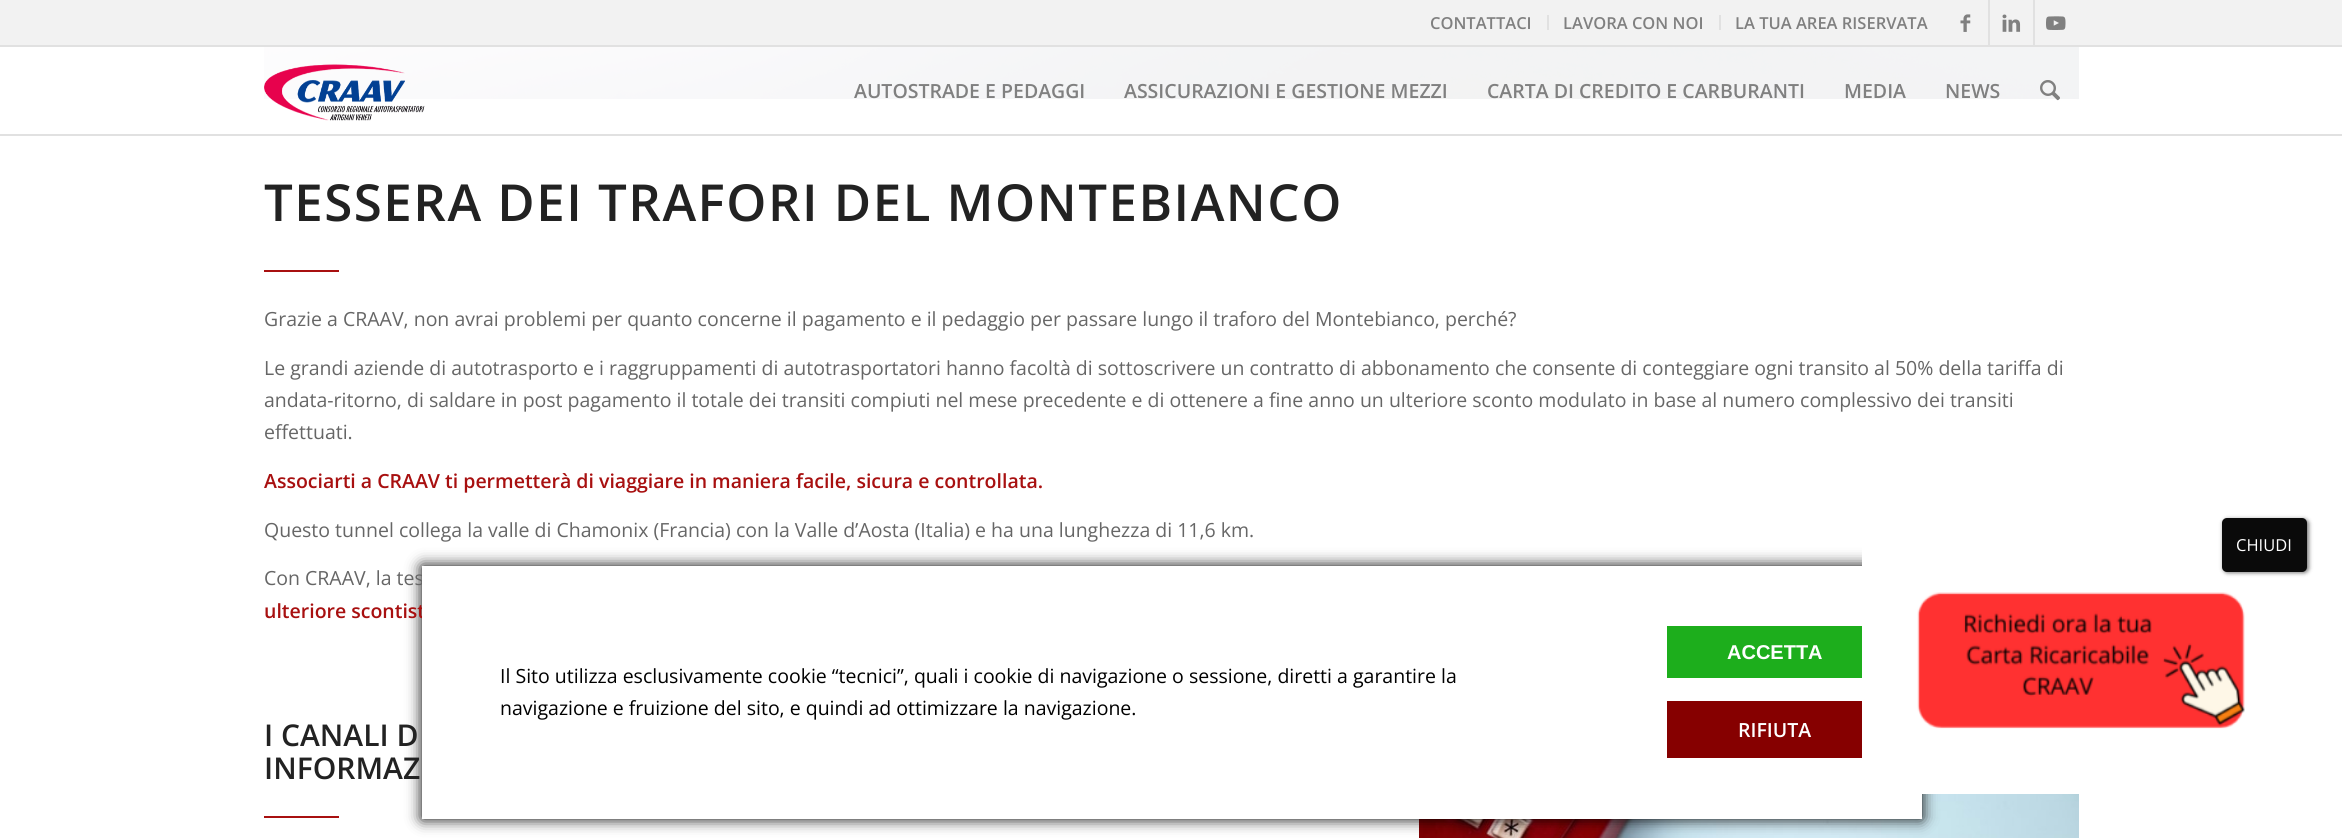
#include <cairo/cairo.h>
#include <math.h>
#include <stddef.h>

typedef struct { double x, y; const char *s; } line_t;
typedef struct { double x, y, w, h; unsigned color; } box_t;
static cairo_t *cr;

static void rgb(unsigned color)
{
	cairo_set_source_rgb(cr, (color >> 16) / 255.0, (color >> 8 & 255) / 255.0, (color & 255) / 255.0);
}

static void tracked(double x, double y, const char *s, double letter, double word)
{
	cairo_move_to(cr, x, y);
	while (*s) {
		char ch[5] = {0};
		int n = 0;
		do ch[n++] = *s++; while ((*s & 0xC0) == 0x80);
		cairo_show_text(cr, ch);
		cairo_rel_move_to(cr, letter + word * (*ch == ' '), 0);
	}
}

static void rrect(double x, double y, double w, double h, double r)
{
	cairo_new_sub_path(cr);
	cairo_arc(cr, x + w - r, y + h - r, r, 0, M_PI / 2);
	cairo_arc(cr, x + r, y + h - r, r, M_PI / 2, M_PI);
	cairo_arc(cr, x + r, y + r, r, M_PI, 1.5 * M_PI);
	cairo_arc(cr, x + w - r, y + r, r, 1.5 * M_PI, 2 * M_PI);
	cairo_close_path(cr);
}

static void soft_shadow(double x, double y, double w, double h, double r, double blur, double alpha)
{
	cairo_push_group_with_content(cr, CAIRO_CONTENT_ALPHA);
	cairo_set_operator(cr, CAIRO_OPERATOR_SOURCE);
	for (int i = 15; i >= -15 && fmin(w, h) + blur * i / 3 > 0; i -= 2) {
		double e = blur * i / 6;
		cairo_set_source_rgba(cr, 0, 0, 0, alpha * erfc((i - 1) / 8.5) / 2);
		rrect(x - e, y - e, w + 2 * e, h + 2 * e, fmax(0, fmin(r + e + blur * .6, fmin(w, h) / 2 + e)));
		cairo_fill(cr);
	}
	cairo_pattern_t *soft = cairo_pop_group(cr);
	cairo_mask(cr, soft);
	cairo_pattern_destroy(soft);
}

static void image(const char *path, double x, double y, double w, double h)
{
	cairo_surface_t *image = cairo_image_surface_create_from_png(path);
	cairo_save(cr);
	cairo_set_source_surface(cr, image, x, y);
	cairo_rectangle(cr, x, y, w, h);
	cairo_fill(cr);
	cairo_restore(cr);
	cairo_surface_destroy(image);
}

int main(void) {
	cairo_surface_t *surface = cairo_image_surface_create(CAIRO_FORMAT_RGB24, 2342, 838);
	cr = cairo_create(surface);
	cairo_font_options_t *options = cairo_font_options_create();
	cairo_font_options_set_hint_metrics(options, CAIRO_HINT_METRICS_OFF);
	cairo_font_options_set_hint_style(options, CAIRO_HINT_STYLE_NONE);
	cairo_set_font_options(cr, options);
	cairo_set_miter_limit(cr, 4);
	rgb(0xffffff);
	cairo_paint(cr);
	{
		static const box_t items[] = {
			{0, 0, 2342, 45, 0xf2f2f2},
			{0, 45, 2342, 2, 0xe1e1e1},
			{1547, 15, 2, 15, 0xe1e1e1},
			{1719, 15, 2, 15, 0xe1e1e1},
			{1988, 0, 2, 45, 0xe1e1e1},
		};
		for (size_t i = 0; i < sizeof items / sizeof *items; i++) {
			rgb(items[i].color);
			cairo_rectangle(cr, items[i].x, items[i].y, items[i].w, items[i].h);
			cairo_fill(cr);
		}
	}
	image("img/1.png", 1960, 14, 11, 18);
	cairo_rectangle(cr, 2033, 0, 2, 45);
	cairo_fill(cr);
	image("img/2.png", 2002, 14, 19, 18);
	image("img/3.png", 2046, 16, 20, 14);
	cairo_rectangle(cr, 0, 134, 2342, 2);
	cairo_fill(cr);
	image("img/6.png", 264, 47, 1815, 52);
	image("img/4.png", 264, 64, 161, 57);
	image("img/5.png", 2040, 80, 20, 21);
	rgb(0xa81010);
	cairo_rectangle(cr, 264, 270, 75, 2);
	cairo_fill(cr);
	cairo_rectangle(cr, 264, 816, 75, 2);
	cairo_fill(cr);
	image("img/7.png", 1419, 794, 660, 44);
	rgb(0x000000);
	soft_shadow(422, 566, 1500, 253, 0, 7.5, 1);
	cairo_select_font_face(cr, "Open Sans SemiBold", CAIRO_FONT_SLANT_NORMAL, CAIRO_FONT_WEIGHT_NORMAL);
	cairo_set_font_size(cr, 16.5);
	rgb(0x808080);
	{
		static const line_t items[] = {
			{1430, 29, "CONTATTACI"},
			{1563, 29, "LAVORA CON NOI"},
			{1735, 29, "LA TUA AREA RISERVATA"},
		};
		for (size_t i = 0; i < sizeof items / sizeof *items; i++) {
			cairo_move_to(cr, items[i].x, items[i].y);
			cairo_show_text(cr, items[i].s);
		}
	}
	cairo_set_font_size(cr, 19.5);
	{
		static const line_t items[] = {
			{854, 98, "AUTOSTRADE E PEDAGGI"},
			{1124, 98, "ASSICURAZIONI E GESTIONE MEZZI"},
			{1487, 98, "CARTA DI CREDITO E CARBURANTI"},
			{1844, 98, "MEDIA"},
			{1945, 98, "NEWS"},
		};
		for (size_t i = 0; i < sizeof items / sizeof *items; i++) {
			cairo_move_to(cr, items[i].x, items[i].y);
			cairo_show_text(cr, items[i].s);
		}
	}
	cairo_set_font_size(cr, 51);
	rgb(0x222222);
	tracked(264, 221, "TESSERA DEI TRAFORI DEL MONTEBIANCO", 1.5, 0);
	cairo_select_font_face(cr, "Open Sans", CAIRO_FONT_SLANT_NORMAL, CAIRO_FONT_WEIGHT_NORMAL);
	cairo_set_font_size(cr, 19.5);
	rgb(0x666666);
	{
		static const line_t items[] = {
			{264, 326, "Grazie a CRAAV, non avrai problemi per quanto concerne il pagamento e il pedaggio per passare lungo il traforo del Montebianco, perché?"},
			{264, 375, "Le grandi aziende di autotrasporto e i raggruppamenti di autotrasportatori hanno facoltà di sottoscrivere un contratto di abbonamento che consente di conteggiare ogni transito al 50% della tariffa di"},
			{264, 407, "andata-ritorno, di saldare in post pagamento il totale dei transiti compiuti nel mese precedente e di ottenere a fine anno un ulteriore sconto modulato in base al numero complessivo dei transiti"},
			{264, 439, "effettuati."},
		};
		for (size_t i = 0; i < sizeof items / sizeof *items; i++) {
			cairo_move_to(cr, items[i].x, items[i].y);
			cairo_show_text(cr, items[i].s);
		}
	}
	cairo_select_font_face(cr, "Open Sans SemiBold", CAIRO_FONT_SLANT_NORMAL, CAIRO_FONT_WEIGHT_NORMAL);
	rgb(0xa81010);
	cairo_move_to(cr, 264, 488);
	cairo_show_text(cr, "Associarti a CRAAV ti permetterà di viaggiare in maniera facile, sicura e controllata.");
	cairo_select_font_face(cr, "Open Sans", CAIRO_FONT_SLANT_NORMAL, CAIRO_FONT_WEIGHT_NORMAL);
	rgb(0x666666);
	cairo_move_to(cr, 264, 537);
	cairo_show_text(cr, "Questo tunnel collega la valle di Chamonix (Francia) con la Valle d’Aosta (Italia) e ha una lunghezza di 11,6 km.");
	cairo_move_to(cr, 264, 585);
	cairo_show_text(cr, "Con CRAAV, la tes");
	cairo_select_font_face(cr, "Open Sans SemiBold", CAIRO_FONT_SLANT_NORMAL, CAIRO_FONT_WEIGHT_NORMAL);
	rgb(0xa81010);
	cairo_move_to(cr, 264, 618);
	cairo_show_text(cr, "ulteriore scontist");
	cairo_set_font_size(cr, 30);
	rgb(0x222222);
	cairo_move_to(cr, 264, 746);
	cairo_show_text(cr, "I CANALI D");
	cairo_move_to(cr, 264, 779);
	cairo_show_text(cr, "INFORMAZ");
	rgb(0xffffff);
	cairo_rectangle(cr, 422, 566, 1500, 253);
	cairo_fill(cr);
	rrect(1862, 527, 436, 267, 20);
	cairo_fill(cr);
	rgb(0x020202);
	soft_shadow(2223, 519, 86, 54, 5, 2, 0.52);
	rgb(0x0a0a0a);
	rrect(2222, 518, 85, 54, 5);
	cairo_fill(cr);
	cairo_select_font_face(cr, "Open Sans", CAIRO_FONT_SLANT_NORMAL, CAIRO_FONT_WEIGHT_NORMAL);
	cairo_set_font_size(cr, 16.5);
	rgb(0xffffff);
	cairo_move_to(cr, 2236, 551);
	cairo_show_text(cr, "CHIUDI");
	image("img/8.png", 1917, 592, 328, 137);
	cairo_set_font_size(cr, 19.5);
	rgb(0x000000);
	cairo_move_to(cr, 500, 683);
	cairo_show_text(cr, "Il Sito utilizza esclusivamente cookie “tecnici”, quali i cookie di navigazione o sessione, diretti a garantire la");
	cairo_move_to(cr, 500, 715);
	cairo_show_text(cr, "navigazione e fruizione del sito, e quindi ad ottimizzare la navigazione.");
	rgb(0x1dae1c);
	cairo_rectangle(cr, 1667, 626, 195, 52);
	cairo_fill(cr);
	cairo_select_font_face(cr, "Liberation Sans", CAIRO_FONT_SLANT_NORMAL, CAIRO_FONT_WEIGHT_BOLD);
	cairo_set_font_size(cr, 20);
	rgb(0xffffff);
	cairo_move_to(cr, 1727, 659);
	cairo_show_text(cr, "ACCETTA");
	rgb(0x860000);
	cairo_rectangle(cr, 1667, 701, 195, 57);
	cairo_fill(cr);
	cairo_select_font_face(cr, "Open Sans SemiBold", CAIRO_FONT_SLANT_NORMAL, CAIRO_FONT_WEIGHT_NORMAL);
	cairo_set_font_size(cr, 19.5);
	rgb(0xffffff);
	cairo_move_to(cr, 1738, 737);
	cairo_show_text(cr, "RIFIUTA");
	cairo_surface_write_to_png(surface, "page.png");
	cairo_font_options_destroy(options);
	cairo_destroy(cr);
	cairo_surface_destroy(surface);
	return 0;
}
